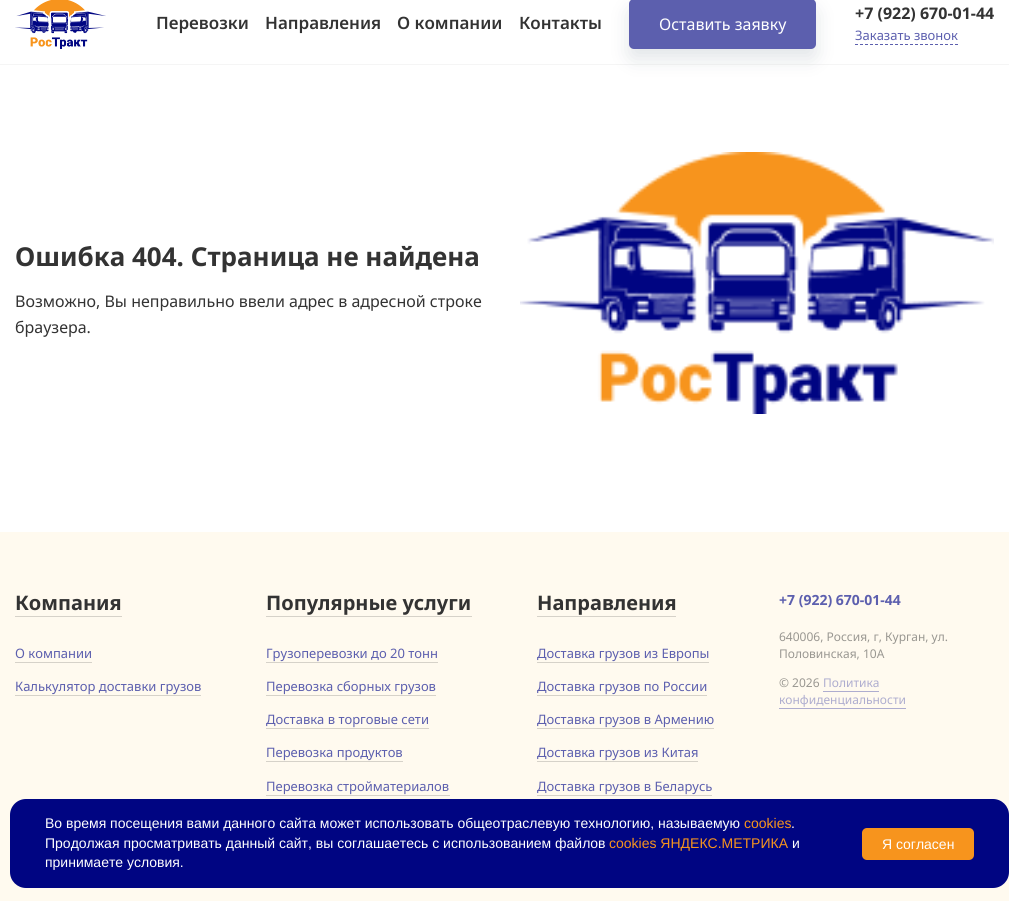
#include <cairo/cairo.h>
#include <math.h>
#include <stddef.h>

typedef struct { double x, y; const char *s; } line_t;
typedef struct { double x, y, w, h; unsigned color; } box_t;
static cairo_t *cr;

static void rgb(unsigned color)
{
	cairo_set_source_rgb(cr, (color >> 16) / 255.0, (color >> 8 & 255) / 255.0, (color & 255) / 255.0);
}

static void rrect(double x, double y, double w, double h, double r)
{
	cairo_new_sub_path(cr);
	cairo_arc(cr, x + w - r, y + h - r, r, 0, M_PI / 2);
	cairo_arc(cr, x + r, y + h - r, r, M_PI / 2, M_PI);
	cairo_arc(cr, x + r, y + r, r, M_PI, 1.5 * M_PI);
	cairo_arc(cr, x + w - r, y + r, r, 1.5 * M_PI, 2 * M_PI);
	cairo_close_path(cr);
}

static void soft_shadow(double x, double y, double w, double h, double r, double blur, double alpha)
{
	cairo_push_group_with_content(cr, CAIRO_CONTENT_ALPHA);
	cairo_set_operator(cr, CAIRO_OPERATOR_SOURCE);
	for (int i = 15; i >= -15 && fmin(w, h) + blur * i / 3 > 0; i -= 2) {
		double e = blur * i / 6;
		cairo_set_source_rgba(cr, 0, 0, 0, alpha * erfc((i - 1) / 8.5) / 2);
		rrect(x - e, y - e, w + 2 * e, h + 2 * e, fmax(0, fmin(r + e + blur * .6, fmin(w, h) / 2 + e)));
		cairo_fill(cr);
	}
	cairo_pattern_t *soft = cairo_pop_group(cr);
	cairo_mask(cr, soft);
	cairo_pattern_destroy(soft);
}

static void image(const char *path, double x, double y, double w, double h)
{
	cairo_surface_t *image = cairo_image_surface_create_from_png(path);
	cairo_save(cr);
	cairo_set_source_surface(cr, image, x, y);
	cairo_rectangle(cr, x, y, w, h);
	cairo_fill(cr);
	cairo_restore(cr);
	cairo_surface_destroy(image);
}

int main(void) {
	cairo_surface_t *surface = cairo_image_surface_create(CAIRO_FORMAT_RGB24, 1009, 901);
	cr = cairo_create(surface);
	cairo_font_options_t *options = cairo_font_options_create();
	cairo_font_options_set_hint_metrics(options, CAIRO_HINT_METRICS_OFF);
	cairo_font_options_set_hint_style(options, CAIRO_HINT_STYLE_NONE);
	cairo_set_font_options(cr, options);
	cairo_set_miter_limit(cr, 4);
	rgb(0xffffff);
	cairo_paint(cr);
	rgb(0xf5f5f5);
	cairo_rectangle(cr, 0, 64, 1009, 1);
	cairo_fill(cr);
	image("img/1.png", 15, 0, 91, 49);
	rgb(0x485f6e);
	soft_shadow(629, 9, 187, 50, 5, 10, 0.16);
	rgb(0x5c5fae);
	rrect(629, -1, 187, 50, 5);
	cairo_fill(cr);
	cairo_new_path(cr);
	cairo_move_to(cr, 855, 44.5);
	cairo_line_to(cr, 958, 44.5);
	cairo_set_line_width(cr, 1);
	cairo_set_dash(cr, (double[]){3, 2}, 2, 0);
	cairo_stroke(cr);
	image("img/2.png", 520, 152, 474, 262);
	{
		static const box_t items[] = {
			{0, 532, 1009, 369, 0xfffaef},
			{15, 616, 107, 1, 0xd6d2c9},
			{15, 662, 77, 1, 0xd6d2c9},
			{15, 695, 186, 1, 0xd6d2c9},
			{266, 616, 206, 1, 0xd6d2c9},
			{266, 662, 172, 1, 0xd6d2c9},
			{266, 695, 170, 1, 0xd6d2c9},
			{266, 728, 163, 1, 0xd6d2c9},
			{266, 761, 137, 1, 0xd6d2c9},
			{266, 795, 184, 1, 0xd6d2c9},
			{537, 616, 139, 1, 0xd6d2c9},
			{537, 662, 172, 1, 0xd6d2c9},
			{537, 695, 170, 1, 0xd6d2c9},
			{537, 728, 177, 1, 0xd6d2c9},
			{537, 761, 161, 1, 0xd6d2c9},
			{537, 795, 175, 1, 0xd6d2c9},
			{823, 691, 56, 1, 0xaeadcf},
			{779, 708, 127, 1, 0xaeadcf},
		};
		for (size_t i = 0; i < sizeof items / sizeof *items; i++) {
			rgb(items[i].color);
			cairo_rectangle(cr, items[i].x, items[i].y, items[i].w, items[i].h);
			cairo_fill(cr);
		}
	}
	rgb(0x000582);
	rrect(10, 799, 999, 89, 16);
	cairo_fill(cr);
	rgb(0xf7941d);
	rrect(862, 828, 112, 32, 5);
	cairo_fill(cr);
	cairo_select_font_face(cr, "Noto Sans SemiBold", CAIRO_FONT_SLANT_NORMAL, CAIRO_FONT_WEIGHT_NORMAL);
	cairo_set_font_size(cr, 17);
	rgb(0x333333);
	{
		static const line_t items[] = {
			{156, 29, "Перевозки"},
			{265, 29, "Направления"},
			{397, 29, "О компании"},
			{519, 29, "Контакты"},
		};
		for (size_t i = 0; i < sizeof items / sizeof *items; i++) {
			cairo_move_to(cr, items[i].x, items[i].y);
			cairo_show_text(cr, items[i].s);
		}
	}
	cairo_select_font_face(cr, "Noto Sans", CAIRO_FONT_SLANT_NORMAL, CAIRO_FONT_WEIGHT_NORMAL);
	cairo_set_font_size(cr, 16);
	rgb(0xffffff);
	cairo_move_to(cr, 659, 30);
	cairo_show_text(cr, "Оставить заявку");
	cairo_select_font_face(cr, "Noto Sans", CAIRO_FONT_SLANT_NORMAL, CAIRO_FONT_WEIGHT_BOLD);
	rgb(0x333333);
	cairo_move_to(cr, 855, 19);
	cairo_show_text(cr, "+7 (922) 670-01-44");
	cairo_select_font_face(cr, "Noto Sans", CAIRO_FONT_SLANT_NORMAL, CAIRO_FONT_WEIGHT_NORMAL);
	cairo_set_font_size(cr, 13);
	rgb(0x5c5fae);
	cairo_move_to(cr, 855, 40);
	cairo_show_text(cr, "Заказать звонок");
	cairo_select_font_face(cr, "Noto Sans", CAIRO_FONT_SLANT_NORMAL, CAIRO_FONT_WEIGHT_BOLD);
	cairo_set_font_size(cr, 26);
	rgb(0x333333);
	cairo_move_to(cr, 15, 266);
	cairo_show_text(cr, "Ошибка 404. Страница не найдена");
	cairo_select_font_face(cr, "Noto Sans", CAIRO_FONT_SLANT_NORMAL, CAIRO_FONT_WEIGHT_NORMAL);
	cairo_set_font_size(cr, 16);
	cairo_move_to(cr, 15, 307);
	cairo_show_text(cr, "Возможно, Вы неправильно ввели адрес в адресной строке");
	cairo_move_to(cr, 15, 333);
	cairo_show_text(cr, "браузера.");
	cairo_select_font_face(cr, "Noto Sans", CAIRO_FONT_SLANT_NORMAL, CAIRO_FONT_WEIGHT_BOLD);
	cairo_set_font_size(cr, 20);
	cairo_move_to(cr, 15, 610);
	cairo_show_text(cr, "Компания");
	cairo_select_font_face(cr, "Noto Sans", CAIRO_FONT_SLANT_NORMAL, CAIRO_FONT_WEIGHT_NORMAL);
	cairo_set_font_size(cr, 13);
	rgb(0x5c5fae);
	cairo_move_to(cr, 15, 658);
	cairo_show_text(cr, "О компании");
	cairo_move_to(cr, 15, 691);
	cairo_show_text(cr, "Калькулятор доставки грузов");
	cairo_select_font_face(cr, "Noto Sans", CAIRO_FONT_SLANT_NORMAL, CAIRO_FONT_WEIGHT_BOLD);
	cairo_set_font_size(cr, 20);
	rgb(0x333333);
	cairo_move_to(cr, 266, 610);
	cairo_show_text(cr, "Популярные услуги");
	cairo_select_font_face(cr, "Noto Sans", CAIRO_FONT_SLANT_NORMAL, CAIRO_FONT_WEIGHT_NORMAL);
	cairo_set_font_size(cr, 13);
	rgb(0x5c5fae);
	{
		static const line_t items[] = {
			{266, 658, "Грузоперевозки до 20 тонн"},
			{266, 691, "Перевозка сборных грузов"},
			{266, 724, "Доставка в торговые сети"},
			{266, 757, "Перевозка продуктов"},
			{266, 791, "Перевозка стройматериалов"},
		};
		for (size_t i = 0; i < sizeof items / sizeof *items; i++) {
			cairo_move_to(cr, items[i].x, items[i].y);
			cairo_show_text(cr, items[i].s);
		}
	}
	cairo_select_font_face(cr, "Noto Sans", CAIRO_FONT_SLANT_NORMAL, CAIRO_FONT_WEIGHT_BOLD);
	cairo_set_font_size(cr, 20);
	rgb(0x333333);
	cairo_move_to(cr, 537, 610);
	cairo_show_text(cr, "Направления");
	cairo_select_font_face(cr, "Noto Sans", CAIRO_FONT_SLANT_NORMAL, CAIRO_FONT_WEIGHT_NORMAL);
	cairo_set_font_size(cr, 13);
	rgb(0x5c5fae);
	{
		static const line_t items[] = {
			{537, 658, "Доставка грузов из Европы"},
			{537, 691, "Доставка грузов по России"},
			{537, 724, "Доставка грузов в Армению"},
			{537, 757, "Доставка грузов из Китая"},
			{537, 791, "Доставка грузов в Беларусь"},
		};
		for (size_t i = 0; i < sizeof items / sizeof *items; i++) {
			cairo_move_to(cr, items[i].x, items[i].y);
			cairo_show_text(cr, items[i].s);
		}
	}
	cairo_select_font_face(cr, "Noto Sans", CAIRO_FONT_SLANT_NORMAL, CAIRO_FONT_WEIGHT_BOLD);
	cairo_set_font_size(cr, 14);
	cairo_move_to(cr, 779, 605);
	cairo_show_text(cr, "+7 (922) 670-01-44");
	cairo_select_font_face(cr, "Noto Sans", CAIRO_FONT_SLANT_NORMAL, CAIRO_FONT_WEIGHT_NORMAL);
	cairo_set_font_size(cr, 12);
	rgb(0x999791);
	{
		static const line_t items[] = {
			{779, 641, "640006, Россия, г, Курган, ул."},
			{779, 658, "Половинская, 10А"},
			{779, 687, "© 2026"},
		};
		for (size_t i = 0; i < sizeof items / sizeof *items; i++) {
			cairo_move_to(cr, items[i].x, items[i].y);
			cairo_show_text(cr, items[i].s);
		}
	}
	rgb(0xaeadcf);
	cairo_move_to(cr, 823, 687);
	cairo_show_text(cr, "Политика");
	cairo_move_to(cr, 779, 704);
	cairo_show_text(cr, "конфиденциальности");
	cairo_select_font_face(cr, "Liberation Sans", CAIRO_FONT_SLANT_NORMAL, CAIRO_FONT_WEIGHT_NORMAL);
	cairo_set_font_size(cr, 14);
	rgb(0xffffff);
	cairo_move_to(cr, 45, 828);
	cairo_show_text(cr, "Во время посещения вами данного сайта может использовать общеотраслевую технологию, называемую");
	rgb(0xf7941d);
	cairo_move_to(cr, 744, 828);
	cairo_show_text(cr, "cookies");
	rgb(0xffffff);
	cairo_move_to(cr, 791, 828);
	cairo_show_text(cr, ".");
	cairo_move_to(cr, 45, 848);
	cairo_show_text(cr, "Продолжая просматривать данный сайт, вы соглашаетесь с использованием файлов");
	rgb(0xf7941d);
	cairo_move_to(cr, 609, 848);
	cairo_show_text(cr, "cookies ЯНДЕКС.МЕТРИКА");
	rgb(0xffffff);
	{
		static const line_t items[] = {
			{792, 848, "и"},
			{45, 867, "принимаете условия."},
			{882, 849, "Я согласен"},
		};
		for (size_t i = 0; i < sizeof items / sizeof *items; i++) {
			cairo_move_to(cr, items[i].x, items[i].y);
			cairo_show_text(cr, items[i].s);
		}
	}
	cairo_surface_write_to_png(surface, "page.png");
	cairo_font_options_destroy(options);
	cairo_destroy(cr);
	cairo_surface_destroy(surface);
	return 0;
}
